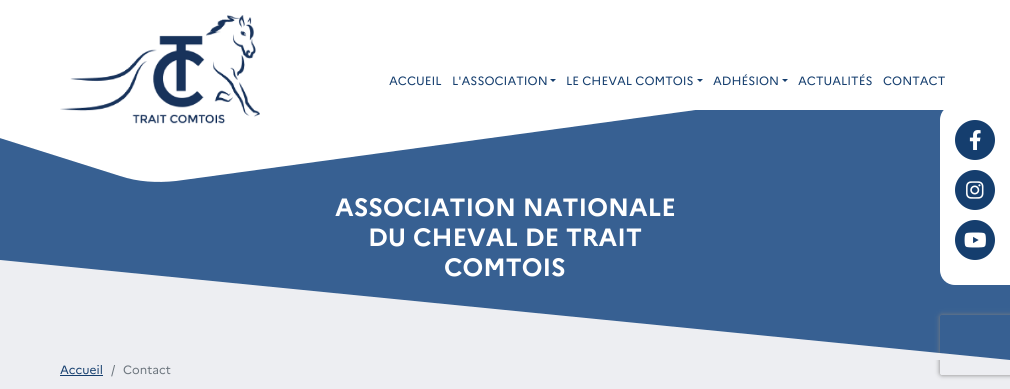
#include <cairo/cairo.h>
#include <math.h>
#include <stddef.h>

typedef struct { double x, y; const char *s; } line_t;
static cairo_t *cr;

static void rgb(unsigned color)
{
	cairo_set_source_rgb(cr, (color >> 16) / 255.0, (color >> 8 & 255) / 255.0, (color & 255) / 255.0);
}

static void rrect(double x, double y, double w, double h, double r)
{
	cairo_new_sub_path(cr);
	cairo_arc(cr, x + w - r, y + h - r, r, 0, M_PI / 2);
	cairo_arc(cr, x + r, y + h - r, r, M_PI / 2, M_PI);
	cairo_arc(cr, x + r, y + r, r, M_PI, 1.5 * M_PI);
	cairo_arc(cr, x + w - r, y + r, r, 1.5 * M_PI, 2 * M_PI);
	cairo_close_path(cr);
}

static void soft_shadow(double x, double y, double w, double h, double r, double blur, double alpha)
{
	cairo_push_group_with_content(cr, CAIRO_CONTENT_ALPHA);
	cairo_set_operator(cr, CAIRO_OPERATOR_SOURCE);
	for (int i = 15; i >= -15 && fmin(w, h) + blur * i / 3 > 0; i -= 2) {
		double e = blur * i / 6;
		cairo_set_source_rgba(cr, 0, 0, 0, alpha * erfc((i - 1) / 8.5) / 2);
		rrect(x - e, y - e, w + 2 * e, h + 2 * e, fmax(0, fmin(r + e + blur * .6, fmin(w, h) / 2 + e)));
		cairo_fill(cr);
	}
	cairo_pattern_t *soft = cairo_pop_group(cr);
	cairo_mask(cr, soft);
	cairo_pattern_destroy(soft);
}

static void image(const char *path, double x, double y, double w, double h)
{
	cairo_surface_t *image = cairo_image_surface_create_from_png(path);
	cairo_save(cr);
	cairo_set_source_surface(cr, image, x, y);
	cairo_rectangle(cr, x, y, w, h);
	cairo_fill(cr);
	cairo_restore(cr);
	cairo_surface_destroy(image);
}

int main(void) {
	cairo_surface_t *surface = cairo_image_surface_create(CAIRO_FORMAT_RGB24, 1010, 389);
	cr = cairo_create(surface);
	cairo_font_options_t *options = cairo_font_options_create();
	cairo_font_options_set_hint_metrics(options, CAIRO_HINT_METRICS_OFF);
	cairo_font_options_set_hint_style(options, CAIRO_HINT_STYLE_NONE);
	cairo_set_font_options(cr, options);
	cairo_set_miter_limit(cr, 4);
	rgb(0xedeef2);
	cairo_paint(cr);
	rgb(0x376092);
	cairo_rectangle(cr, 0, 110, 1010, 250);
	cairo_fill(cr);
	cairo_save(cr);
	cairo_set_fill_rule(cr, CAIRO_FILL_RULE_EVEN_ODD);
	cairo_new_path(cr);
	cairo_move_to(cr, 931, 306);
	cairo_line_to(cr, 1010, 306);
	cairo_line_to(cr, 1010, 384);
	cairo_line_to(cr, 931, 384);
	cairo_close_path(cr);
	cairo_move_to(cr, 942, 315);
	cairo_line_to(cr, 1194, 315);
	cairo_curve_to(cr, 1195, 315, 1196, 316, 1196, 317);
	cairo_line_to(cr, 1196, 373);
	cairo_curve_to(cr, 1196, 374, 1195, 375, 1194, 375);
	cairo_line_to(cr, 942, 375);
	cairo_curve_to(cr, 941, 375, 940, 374, 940, 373);
	cairo_line_to(cr, 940, 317);
	cairo_curve_to(cr, 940, 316, 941, 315, 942, 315);
	cairo_close_path(cr);
	cairo_clip(cr);
	rgb(0x808080);
	soft_shadow(940, 315, 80, 60, 2, 2.5, 1);
	cairo_restore(cr);
	rgb(0xedeef2);
	cairo_new_path(cr);
	cairo_move_to(cr, 1010, 360);
	cairo_line_to(cr, 0, 360);
	cairo_line_to(cr, 0, 260);
	cairo_close_path(cr);
	cairo_fill(cr);
	rgb(0xffffff);
	cairo_new_path(cr);
	cairo_move_to(cr, 955, 105);
	cairo_line_to(cr, 1010, 105);
	cairo_line_to(cr, 1010, 285);
	cairo_line_to(cr, 955, 285);
	cairo_curve_to(cr, 946.5, 285, 940, 278.5, 940, 270);
	cairo_line_to(cr, 940, 120);
	cairo_curve_to(cr, 940, 111.5, 946.5, 105, 955, 105);
	cairo_close_path(cr);
	cairo_fill(cr);
	cairo_rectangle(cr, 0, 0, 1010, 110);
	cairo_fill(cr);
	rgb(0x153e6e);
	cairo_arc(cr, 975, 140, 20, 0, 2 * M_PI);
	cairo_fill(cr);
	image("img/2.png", 969, 130, 12, 20);
	cairo_arc(cr, 975, 190, 20, 0, 2 * M_PI);
	cairo_fill(cr);
	image("img/3.png", 966, 181, 18, 18);
	cairo_save(cr);
	cairo_rectangle(cr, 0, 72, 1010, 110);
	cairo_clip(cr);
	rgb(0xffffff);
	cairo_new_path(cr);
	cairo_move_to(cr, -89, 110);
	cairo_line_to(cr, 120, 176);
	cairo_curve_to(cr, 138, 182, 157, 183, 176, 181);
	cairo_line_to(cr, 1010, 67);
	cairo_line_to(cr, 1010, -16);
	cairo_line_to(cr, -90, -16);
	cairo_close_path(cr);
	cairo_fill(cr);
	cairo_restore(cr);
	image("img/1.png", 60, 15, 200, 109);
	cairo_new_path(cr);
	cairo_move_to(cr, 550, 79);
	cairo_line_to(cr, 556, 79);
	cairo_line_to(cr, 553, 82);
	cairo_close_path(cr);
	cairo_fill(cr);
	cairo_new_path(cr);
	cairo_move_to(cr, 697, 79);
	cairo_line_to(cr, 703, 79);
	cairo_line_to(cr, 700, 82);
	cairo_close_path(cr);
	cairo_fill(cr);
	cairo_new_path(cr);
	cairo_move_to(cr, 782, 79);
	cairo_line_to(cr, 788, 79);
	cairo_line_to(cr, 785, 82);
	cairo_close_path(cr);
	cairo_fill(cr);
	cairo_rectangle(cr, 60, 375, 43, 1);
	cairo_fill(cr);
	cairo_arc(cr, 975, 240, 20, 0, 2 * M_PI);
	cairo_fill(cr);
	image("img/4.png", 964, 232, 22, 16);
	cairo_select_font_face(cr, "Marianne", CAIRO_FONT_SLANT_NORMAL, CAIRO_FONT_WEIGHT_NORMAL);
	cairo_set_font_size(cr, 12);
	{
		static const line_t items[] = {
			{389, 85, "ACCUEIL"},
			{452, 85, "L'ASSOCIATION"},
			{566, 85, "LE CHEVAL COMTOIS"},
			{713, 85, "ADHÉSION"},
			{798, 85, "ACTUALITÉS"},
			{883, 85, "CONTACT"},
		};
		for (size_t i = 0; i < sizeof items / sizeof *items; i++) {
			cairo_move_to(cr, items[i].x, items[i].y);
			cairo_show_text(cr, items[i].s);
		}
	}
	cairo_select_font_face(cr, "Marianne", CAIRO_FONT_SLANT_NORMAL, CAIRO_FONT_WEIGHT_BOLD);
	cairo_set_font_size(cr, 25);
	rgb(0xffffff);
	{
		static const line_t items[] = {
			{335, 216, "ASSOCIATION NATIONALE"},
			{368, 246, "DU CHEVAL DE TRAIT"},
			{444, 276, "COMTOIS"},
		};
		for (size_t i = 0; i < sizeof items / sizeof *items; i++) {
			cairo_move_to(cr, items[i].x, items[i].y);
			cairo_show_text(cr, items[i].s);
		}
	}
	cairo_select_font_face(cr, "Marianne", CAIRO_FONT_SLANT_NORMAL, CAIRO_FONT_WEIGHT_NORMAL);
	cairo_set_font_size(cr, 12);
	rgb(0x153e6e);
	cairo_move_to(cr, 60, 374);
	cairo_show_text(cr, "Accueil");
	rgb(0x6c757d);
	cairo_move_to(cr, 111, 374);
	cairo_show_text(cr, "/");
	cairo_move_to(cr, 123, 374);
	cairo_show_text(cr, "Contact");
	cairo_surface_write_to_png(surface, "page.png");
	cairo_font_options_destroy(options);
	cairo_destroy(cr);
	cairo_surface_destroy(surface);
	return 0;
}
